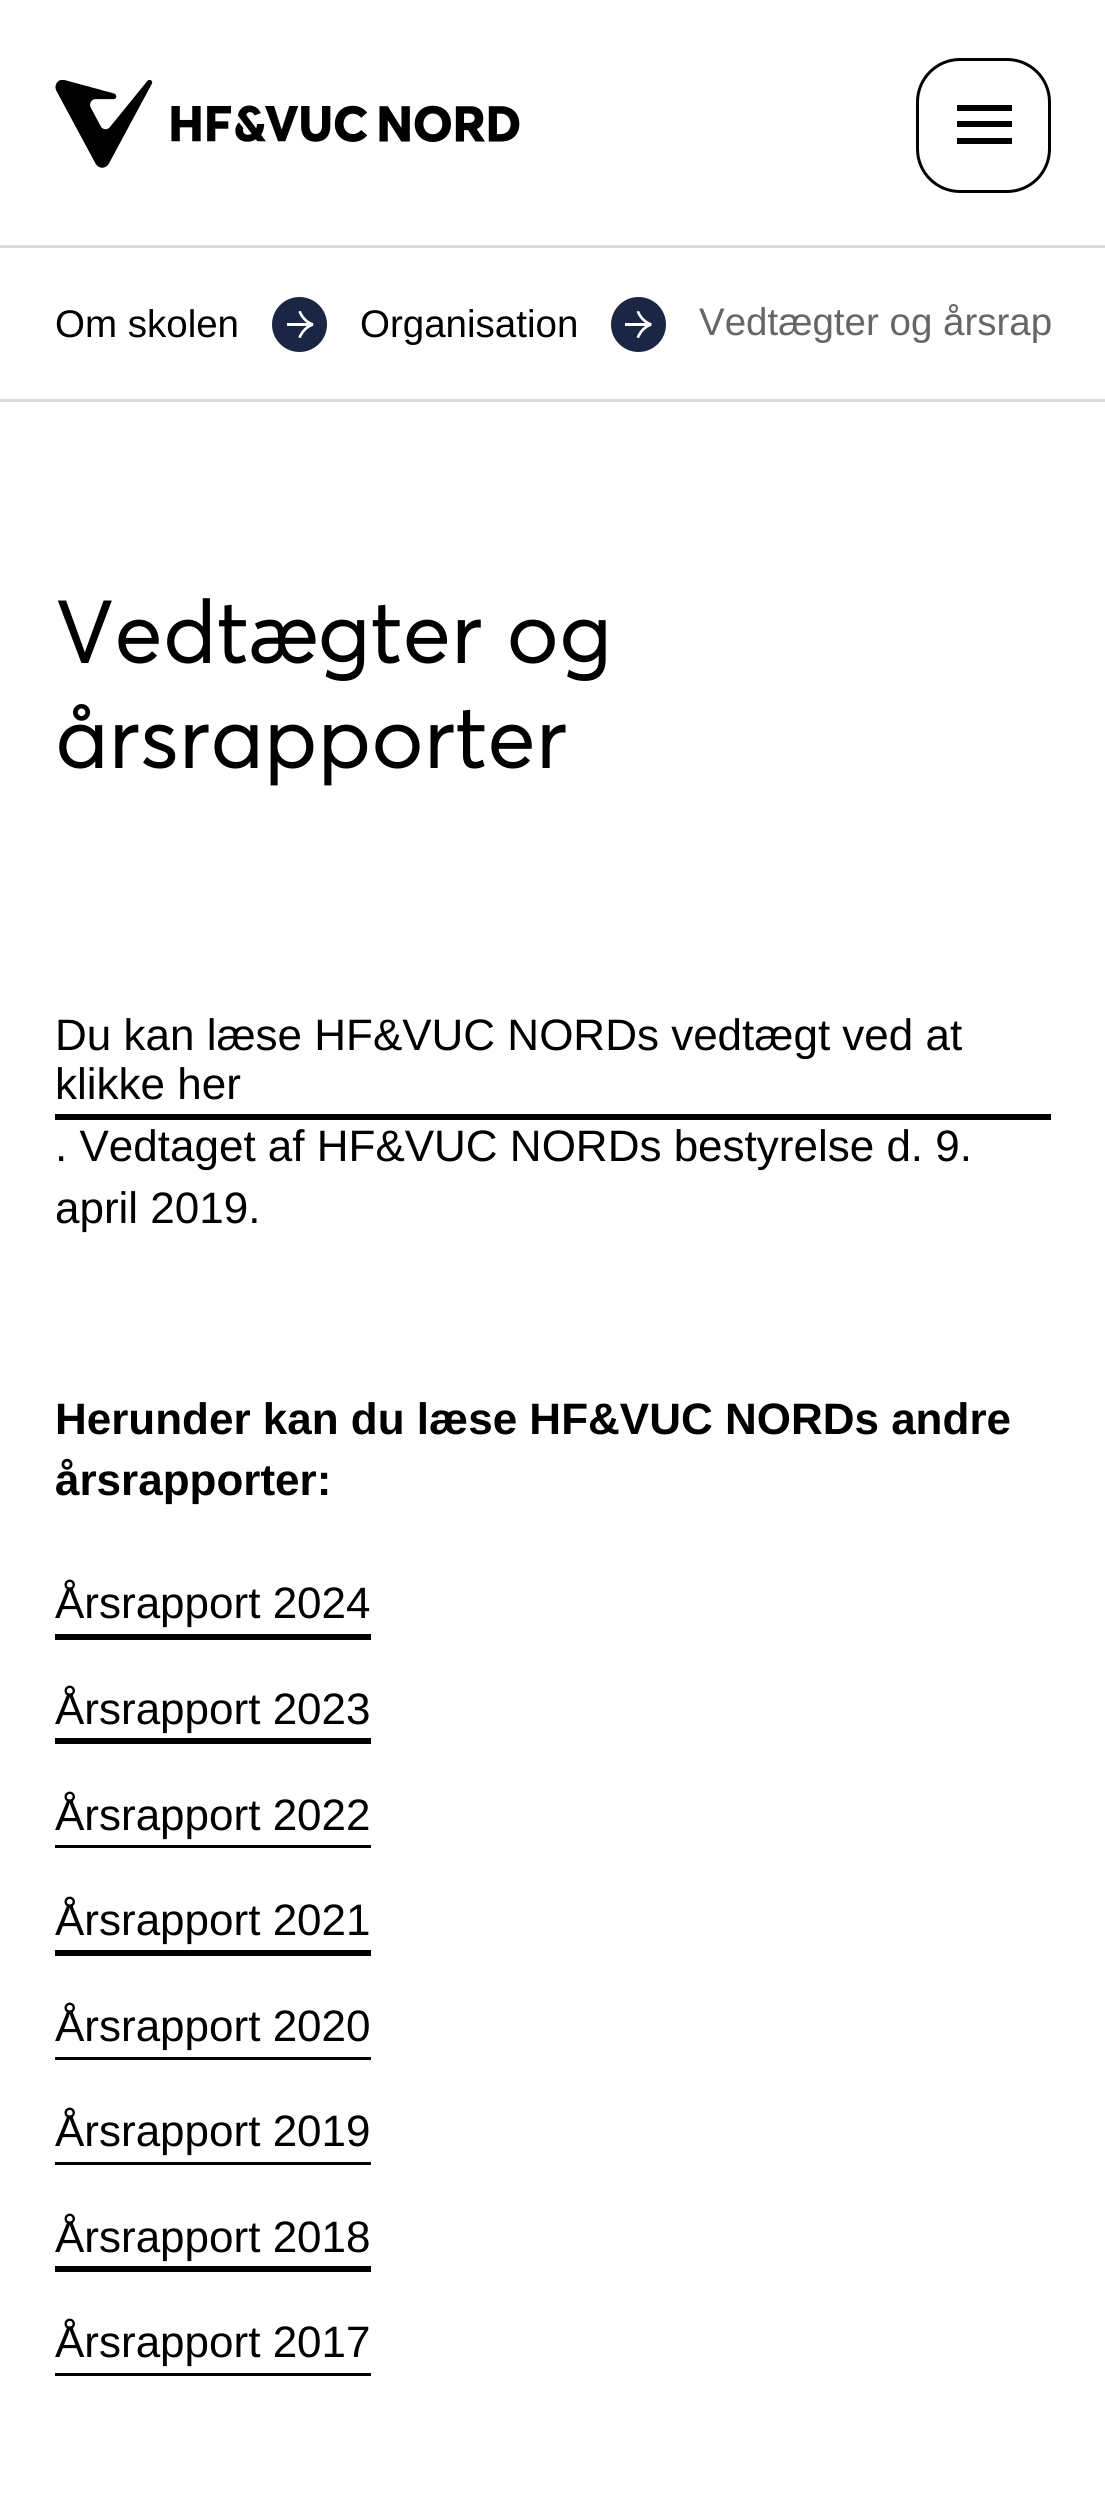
import math
import cairocffi as cairo

surface = cairo.ImageSurface(cairo.FORMAT_RGB24, 1105, 2512)
cr = cairo.Context(surface)
options = cairo.FontOptions()
options.set_hint_metrics(cairo.HINT_METRICS_OFF)
options.set_hint_style(cairo.HINT_STYLE_NONE)
cr.set_font_options(options)
cr.set_miter_limit(4)


def use_color(code):
    cr.set_source_rgb(*(v / 255 for v in bytes.fromhex(code[-6:])))


def round_rect(x, y, w, h, r):
    cr.new_sub_path()
    for i, (u, v) in enumerate([(x + w - r, y + h - r), (x + r, y + h - r), (x + r, y + r), (x + w - r, y + r)]):
        cr.arc(u, v, r, i * math.pi / 2, (i + 1) * math.pi / 2)
    cr.close_path()


def picture(path, x, y, w, h):
    cr.save()
    cr.set_source_surface(cairo.ImageSurface.create_from_png(path), x, y)
    cr.rectangle(x, y, w, h)
    cr.fill()
    cr.restore()


use_color("#ffffff")
cr.paint()
use_color("#dadada")
cr.rectangle(0, 245, 1105, 3)
cr.fill()
picture("img1.png", 55, 80, 465, 88)
round_rect(917.5, 59.5, 132, 132, 42.5)
use_color("#000000")
cr.set_line_width(3)
cr.stroke()
cr.rectangle(957, 121, 55, 6)
cr.fill()
cr.rectangle(957, 105, 55, 6)
cr.fill()
cr.rectangle(957, 138, 55, 6)
cr.fill()
use_color("#dadada")
cr.rectangle(0, 399, 1105, 3)
cr.fill()
cr.select_font_face("Liberation Sans")
cr.set_font_size(38.5)
use_color("#000000")
cr.move_to(55, 337)
cr.show_text("Om skolen")
use_color("#1a2643")
cr.new_path()
cr.arc(299.5, 324.5, 27.5, 0, 2 * math.pi)
cr.fill()
picture("img2.png", 287, 311, 27, 27)
use_color("#000000")
cr.move_to(360, 337)
cr.show_text("Organisation")
use_color("#1a2643")
cr.new_path()
cr.arc(638.5, 324.5, 27.5, 0, 2 * math.pi)
cr.fill()
picture("img3.png", 625, 311, 27, 27)
use_color("#666666")
cr.move_to(699, 335)
cr.show_text("Vedtægter og årsrap")
cr.select_font_face("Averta")
cr.set_font_size(88)
use_color("#000000")
cr.move_to(55, 663)
cr.show_text("Vedtægter og")
cr.move_to(55, 768)
cr.show_text("årsrapporter")
cr.select_font_face("Liberation Sans")
cr.set_font_size(44)
cr.move_to(55, 1050)
cr.show_text("Du kan læse HF&VUC NORDs vedtægt ved at")
cr.move_to(55, 1099)
cr.show_text("klikke her")
cr.rectangle(55, 1114, 996, 6)
cr.fill()
cr.move_to(55, 1161)
cr.show_text(". Vedtaget af HF&VUC NORDs bestyrelse d. 9.")
cr.move_to(55, 1223)
cr.show_text("april 2019.")
cr.select_font_face("Liberation Sans", cairo.FONT_SLANT_NORMAL, cairo.FONT_WEIGHT_BOLD)
cr.move_to(55, 1434)
cr.show_text("Herunder kan du læse HF&VUC NORDs andre")
cr.move_to(55, 1495)
cr.show_text("årsrapporter:")
cr.select_font_face("Liberation Sans")
cr.move_to(55, 1618)
cr.show_text("Årsrapport 2024")
cr.rectangle(55, 1634, 316, 6)
cr.fill()
cr.move_to(55, 1724)
cr.show_text("Årsrapport 2023")
cr.rectangle(55, 1738, 316, 6)
cr.fill()
cr.move_to(55, 1830)
cr.show_text("Årsrapport 2022")
cr.rectangle(55, 1845, 316, 3)
cr.fill()
cr.move_to(55, 1935)
cr.show_text("Årsrapport 2021")
cr.rectangle(55, 1950, 316, 6)
cr.fill()
cr.move_to(55, 2041)
cr.show_text("Årsrapport 2020")
cr.rectangle(55, 2057, 316, 3)
cr.fill()
cr.move_to(55, 2146)
cr.show_text("Årsrapport 2019")
cr.rectangle(55, 2162, 316, 3)
cr.fill()
cr.move_to(55, 2252)
cr.show_text("Årsrapport 2018")
cr.rectangle(55, 2266, 316, 6)
cr.fill()
cr.move_to(55, 2357)
cr.show_text("Årsrapport 2017")
cr.rectangle(55, 2373, 316, 3)
cr.fill()
surface.write_to_png("result.png")
